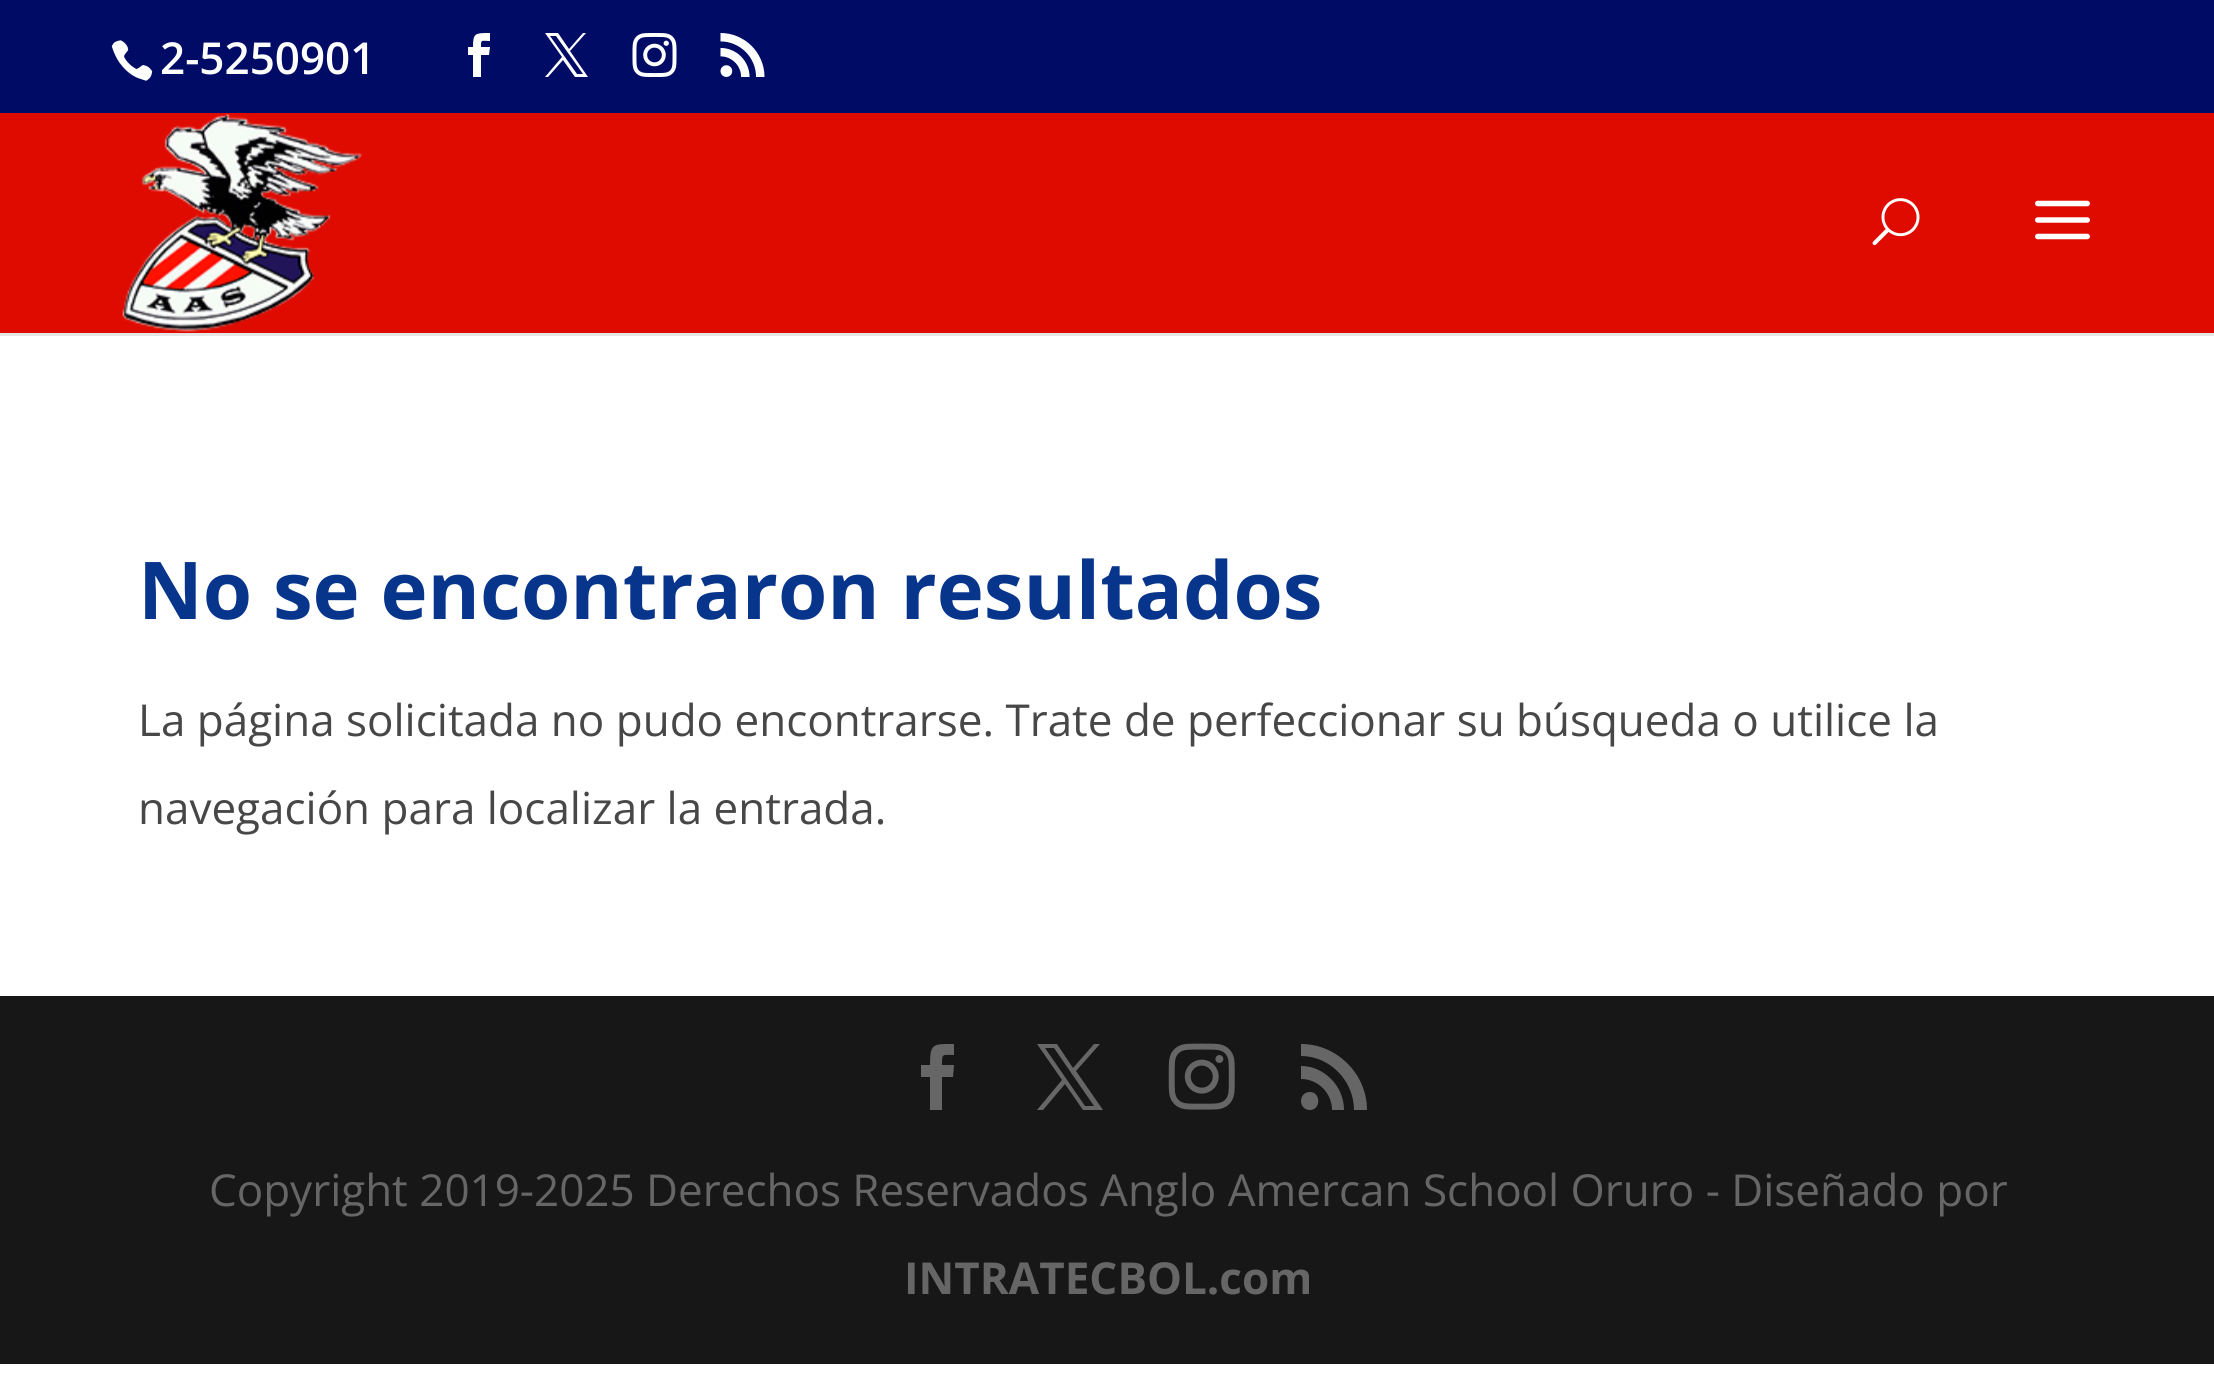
import math
import cairocffi as cairo

surface = cairo.ImageSurface(cairo.FORMAT_RGB24, 2214, 1394)
cr = cairo.Context(surface)
options = cairo.FontOptions()
options.set_hint_metrics(cairo.HINT_METRICS_OFF)
options.set_hint_style(cairo.HINT_STYLE_NONE)
cr.set_font_options(options)
cr.set_miter_limit(4)


def use_color(code):
    cr.set_source_rgb(*(v / 255 for v in bytes.fromhex(code[-6:])))


def picture(path, x, y, w, h):
    cr.save()
    cr.set_source_surface(cairo.ImageSurface.create_from_png(path), x, y)
    cr.rectangle(x, y, w, h)
    cr.fill()
    cr.restore()


use_color("#ffffff")
cr.paint()
use_color("#000b66")
cr.rectangle(0, 0, 2214, 113)
cr.fill()
picture("img1.png", 111, 40, 42, 41)
cr.select_font_face("Open Sans SemiBold")
cr.set_font_size(44)
use_color("#ffffff")
cr.move_to(160, 74)
cr.show_text("2-5250901")
cr.new_path()
cr.move_to(473, 77)
cr.line_to(481, 77)
cr.line_to(481, 55)
cr.line_to(489, 55)
cr.line_to(490, 47)
cr.line_to(481, 47)
cr.curve_to(481, 39, 481, 41, 490, 41)
cr.line_to(490, 33)
cr.curve_to(475, 33, 473, 33, 473, 47)
cr.line_to(468, 47)
cr.line_to(468, 55)
cr.line_to(473, 55)
cr.close_path()
cr.fill()
cr.new_path()
cr.move_to(545, 33)
cr.line_to(562, 57)
cr.line_to(545, 77)
cr.line_to(548, 77)
cr.line_to(563, 60)
cr.line_to(575, 77)
cr.line_to(588, 77)
cr.line_to(570, 51)
cr.line_to(586, 33)
cr.line_to(583, 33)
cr.line_to(569, 49)
cr.line_to(558, 33)
cr.close_path()
cr.move_to(550, 36)
cr.line_to(556, 36)
cr.line_to(583, 74)
cr.line_to(577, 74)
cr.close_path()
cr.fill()
picture("img2.png", 632, 33, 45, 44)
picture("img3.png", 720, 33, 45, 44)
use_color("#e6e6e6")
cr.new_path()
cr.move_to(0, 333)
cr.line_to(0, 336)
cr.line_to(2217, 336)
cr.line_to(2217, 116)
cr.line_to(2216, 116)
cr.line_to(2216, 333)
cr.close_path()
cr.fill()
use_color("#e00b00")
cr.rectangle(0, 113, 2214, 220)
cr.fill()
picture("img4.png", 122, 113, 241, 219)
picture("img5.png", 1872, 198, 48, 48)
picture("img6.png", 2035, 200, 55, 40)
cr.select_font_face("Open Sans", cairo.FONT_SLANT_NORMAL, cairo.FONT_WEIGHT_BOLD)
cr.set_font_size(79.75)
use_color("#07358c")
cr.move_to(138, 619)
cr.show_text("No se encontraron resultados")
cr.select_font_face("Open Sans")
cr.set_font_size(44)
use_color("#474747")
cr.move_to(138, 736)
cr.show_text("La página solicitada no pudo encontrarse. Trate de perfeccionar su búsqueda o utilice la")
cr.move_to(138, 824)
cr.show_text("navegación para localizar la entrada.")
use_color("#171717")
cr.rectangle(0, 996, 2214, 368)
cr.fill()
use_color("#666666")
cr.new_path()
cr.move_to(930, 1110)
cr.line_to(942, 1110)
cr.line_to(942, 1077)
cr.line_to(953, 1077)
cr.line_to(954, 1065)
cr.line_to(942, 1065)
cr.curve_to(942, 1053, 942, 1055, 954, 1055)
cr.line_to(954, 1044)
cr.curve_to(933, 1044, 930, 1043, 930, 1065)
cr.line_to(921, 1065)
cr.line_to(921, 1077)
cr.line_to(930, 1077)
cr.close_path()
cr.fill()
cr.new_path()
cr.move_to(1037, 1044)
cr.line_to(1062, 1080)
cr.line_to(1037, 1110)
cr.line_to(1043, 1110)
cr.line_to(1065, 1084)
cr.line_to(1083, 1110)
cr.line_to(1103, 1110)
cr.line_to(1076, 1071)
cr.line_to(1100, 1044)
cr.line_to(1094, 1044)
cr.line_to(1073, 1068)
cr.line_to(1057, 1044)
cr.close_path()
cr.move_to(1045, 1048)
cr.line_to(1054, 1048)
cr.line_to(1094, 1106)
cr.line_to(1085, 1106)
cr.close_path()
cr.fill()
picture("img7.png", 1168, 1043, 67, 67)
cr.new_path()
cr.move_to(1301, 1044)
cr.line_to(1301, 1056)
cr.curve_to(1330, 1056, 1354, 1081, 1354, 1110)
cr.line_to(1367, 1110)
cr.curve_to(1367, 1074, 1337, 1044, 1301, 1044)
cr.close_path()
cr.move_to(1332, 1110)
cr.line_to(1344, 1110)
cr.curve_to(1344, 1086, 1324, 1066, 1301, 1066)
cr.line_to(1301, 1079)
cr.curve_to(1318, 1079, 1332, 1093, 1332, 1110)
cr.close_path()
cr.move_to(1310, 1110)
cr.curve_to(1321, 1110, 1321, 1092, 1310, 1092)
cr.curve_to(1298, 1092, 1298, 1110, 1310, 1110)
cr.close_path()
cr.fill()
cr.move_to(209, 1206)
cr.show_text("Copyright 2019-2025 Derechos Reservados Anglo Amercan School Oruro - Diseñado por")
cr.select_font_face("Open Sans", cairo.FONT_SLANT_NORMAL, cairo.FONT_WEIGHT_BOLD)
cr.move_to(904, 1294)
cr.show_text("INTRATECBOL.com")
surface.write_to_png("result.png")
